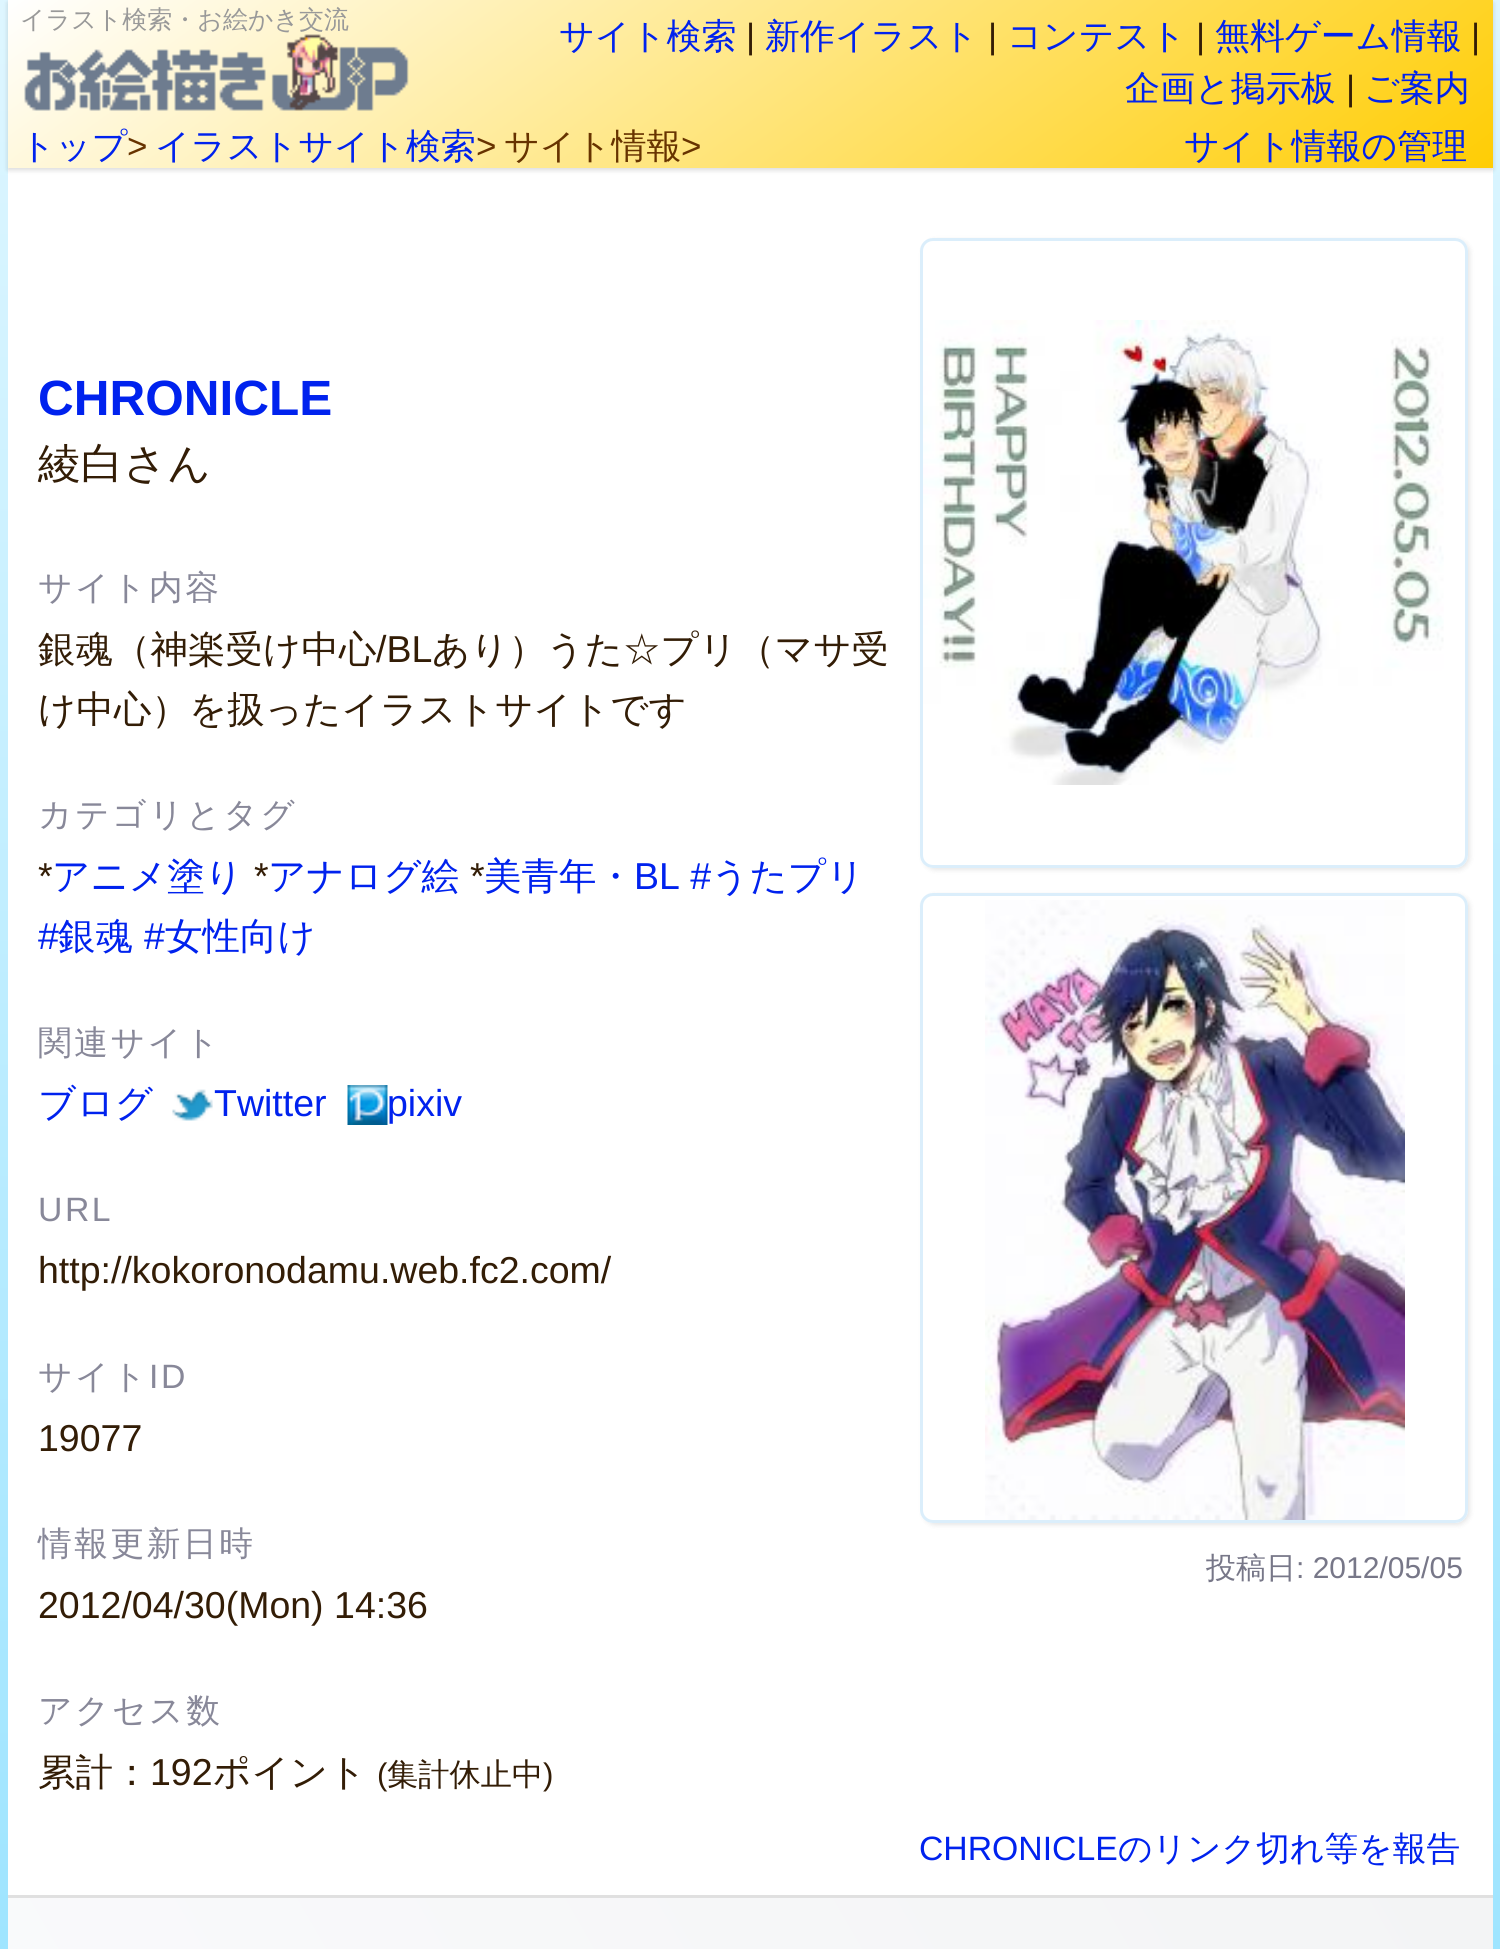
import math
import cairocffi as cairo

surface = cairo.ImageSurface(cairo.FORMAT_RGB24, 1500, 1949)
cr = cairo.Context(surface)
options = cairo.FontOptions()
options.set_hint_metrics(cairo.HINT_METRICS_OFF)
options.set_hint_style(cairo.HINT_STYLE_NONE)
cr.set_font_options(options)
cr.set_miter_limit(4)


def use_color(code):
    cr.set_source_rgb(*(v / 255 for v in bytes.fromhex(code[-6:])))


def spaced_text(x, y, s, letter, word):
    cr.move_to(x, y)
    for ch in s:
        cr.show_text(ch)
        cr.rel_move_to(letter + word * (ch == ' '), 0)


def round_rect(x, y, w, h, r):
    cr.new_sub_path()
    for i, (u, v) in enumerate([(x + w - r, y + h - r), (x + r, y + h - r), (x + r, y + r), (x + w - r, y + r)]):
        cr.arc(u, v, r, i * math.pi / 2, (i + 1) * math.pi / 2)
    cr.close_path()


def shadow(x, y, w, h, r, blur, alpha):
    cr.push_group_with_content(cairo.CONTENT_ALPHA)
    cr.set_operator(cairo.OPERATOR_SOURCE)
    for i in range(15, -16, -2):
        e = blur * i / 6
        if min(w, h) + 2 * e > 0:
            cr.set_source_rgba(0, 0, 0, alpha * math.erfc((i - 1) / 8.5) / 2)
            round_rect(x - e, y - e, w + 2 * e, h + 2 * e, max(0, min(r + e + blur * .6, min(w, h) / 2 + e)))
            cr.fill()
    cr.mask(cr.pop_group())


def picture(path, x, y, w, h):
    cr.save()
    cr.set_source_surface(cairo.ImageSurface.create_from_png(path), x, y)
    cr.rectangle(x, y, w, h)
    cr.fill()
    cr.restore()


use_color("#ffffff")
cr.paint()
gradient = cairo.LinearGradient(750, 0, 750, 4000)
gradient.add_color_stop_rgba(0, 0.871, 0.965, 1, 1)
gradient.add_color_stop_rgba(1, 0.361, 0.824, 1, 1)
cr.set_source(gradient)
cr.rectangle(0, 0, 1500, 1949)
cr.fill()
use_color("#ffffff")
cr.rectangle(8, 168, 1485, 1727)
cr.fill()
use_color("#000000")
shadow(8, 3, 1485, 167, 0, 2.5, 0.15)
gradient = cairo.LinearGradient(454, -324, 1046, 492)
gradient.add_color_stop_rgba(0, 1, 1, 1, 1)
gradient.add_color_stop_rgba(1, 1, 0.804, 0.016, 1)
cr.set_source(gradient)
cr.rectangle(8, 0, 1485, 168)
cr.fill()
cr.select_font_face("WenQuanYi Zen Hei Medium")
cr.set_font_size(25)
use_color("#999999")
cr.move_to(20, 28)
cr.show_text("イラスト検索・お絵かき交流")
picture("img1.png", 24, 34, 385, 77)
cr.set_font_size(35)
use_color("#0022ee")
cr.move_to(559, 48)
cr.show_text("サイト検索")
cr.select_font_face("Liberation Sans")
use_color("#331d06")
cr.move_to(746, 48)
cr.show_text("|")
cr.select_font_face("WenQuanYi Zen Hei Medium")
use_color("#0022ee")
cr.move_to(765, 48)
cr.show_text("新作イラスト")
cr.select_font_face("Liberation Sans")
use_color("#331d06")
cr.move_to(988, 48)
cr.show_text("|")
cr.select_font_face("WenQuanYi Zen Hei Medium")
use_color("#0022ee")
cr.move_to(1007, 48)
cr.show_text("コンテスト")
cr.select_font_face("Liberation Sans")
use_color("#331d06")
cr.move_to(1196, 48)
cr.show_text("|")
cr.select_font_face("WenQuanYi Zen Hei Medium")
use_color("#0022ee")
cr.move_to(1215, 48)
cr.show_text("無料ゲーム情報")
cr.select_font_face("Liberation Sans")
use_color("#331d06")
cr.move_to(1471, 48)
cr.show_text("|")
cr.select_font_face("WenQuanYi Zen Hei Medium")
use_color("#0022ee")
cr.move_to(1125, 100)
cr.show_text("企画と掲示板")
cr.select_font_face("Liberation Sans")
use_color("#331d06")
cr.move_to(1346, 100)
cr.show_text("|")
cr.select_font_face("WenQuanYi Zen Hei Medium")
use_color("#0022ee")
cr.move_to(1364, 100)
cr.show_text("ご案内")
cr.move_to(20, 158)
cr.show_text("トップ")
cr.select_font_face("Liberation Sans")
use_color("#673300")
cr.move_to(127, 158)
cr.show_text(">")
cr.select_font_face("WenQuanYi Zen Hei Medium")
use_color("#0022ee")
cr.move_to(155, 158)
cr.show_text("イラストサイト検索")
cr.select_font_face("Liberation Sans")
use_color("#673300")
cr.move_to(476, 158)
cr.show_text(">")
cr.select_font_face("WenQuanYi Zen Hei Medium")
cr.move_to(504, 158)
cr.show_text("サイト情報")
cr.select_font_face("Liberation Sans")
cr.move_to(681, 158)
cr.show_text(">")
cr.select_font_face("WenQuanYi Zen Hei Medium")
use_color("#0022ee")
cr.move_to(1184, 158)
cr.show_text("サイト情報の管理")
cr.select_font_face("Liberation Sans", cairo.FONT_SLANT_NORMAL, cairo.FONT_WEIGHT_BOLD)
cr.set_font_size(49.5)
cr.move_to(38, 415)
cr.show_text("CHRONICLE")
cr.select_font_face("WenQuanYi Zen Hei Medium")
cr.set_font_size(42.75)
use_color("#331d06")
cr.move_to(38, 478)
cr.show_text("綾白さん")
cr.set_font_size(33.75)
use_color("#888899")
spaced_text(38, 599, "サイト内容", 2.5, 0)
cr.set_font_size(37.5)
use_color("#331d06")
cr.move_to(38, 662)
cr.show_text("銀魂（神楽受け中心")
cr.select_font_face("Liberation Sans")
cr.move_to(376, 662)
cr.show_text("/BL")
cr.select_font_face("WenQuanYi Zen Hei Medium")
cr.move_to(432, 662)
cr.show_text("あり）うた☆プリ（マサ受")
cr.move_to(38, 722)
cr.show_text("け中心）を扱ったイラストサイトです")
cr.set_font_size(33.75)
use_color("#888899")
spaced_text(38, 826, "カテゴリとタグ", 2.5, 0)
cr.select_font_face("Liberation Sans")
cr.set_font_size(37.5)
use_color("#331d06")
cr.move_to(38, 889)
cr.show_text("*")
cr.select_font_face("WenQuanYi Zen Hei Medium")
use_color("#0022ee")
cr.move_to(52, 889)
cr.show_text("アニメ塗り")
cr.select_font_face("Liberation Sans")
use_color("#331d06")
cr.move_to(254, 889)
cr.show_text("*")
cr.select_font_face("WenQuanYi Zen Hei Medium")
use_color("#0022ee")
cr.move_to(268, 889)
cr.show_text("アナログ絵")
cr.select_font_face("Liberation Sans")
use_color("#331d06")
cr.move_to(470, 889)
cr.show_text("*")
cr.select_font_face("WenQuanYi Zen Hei Medium")
use_color("#0022ee")
cr.move_to(484, 889)
cr.show_text("美青年・")
cr.select_font_face("Liberation Sans")
cr.move_to(634, 889)
cr.show_text("BL #")
cr.select_font_face("WenQuanYi Zen Hei Medium")
cr.move_to(711, 889)
cr.show_text("うたプリ")
cr.select_font_face("Liberation Sans")
cr.move_to(38, 949)
cr.show_text("#")
cr.select_font_face("WenQuanYi Zen Hei Medium")
cr.move_to(58, 949)
cr.show_text("銀魂")
cr.select_font_face("Liberation Sans")
cr.move_to(144, 949)
cr.show_text("#")
cr.select_font_face("WenQuanYi Zen Hei Medium")
cr.move_to(165, 949)
cr.show_text("女性向け")
cr.set_font_size(33.75)
use_color("#888899")
spaced_text(38, 1054, "関連サイト", 2.5, 0)
cr.set_font_size(37.5)
use_color("#0022ee")
cr.move_to(38, 1116)
cr.show_text("ブログ")
picture("img2.png", 172, 1089, 41, 32)
cr.select_font_face("Liberation Sans")
cr.move_to(214, 1116)
cr.show_text("Twitter")
picture("img3.png", 347, 1085, 41, 40)
cr.move_to(387, 1116)
cr.show_text("pixiv")
cr.set_font_size(33.75)
use_color("#888899")
spaced_text(38, 1221, "URL", 2.5, 0)
cr.set_font_size(37.5)
use_color("#331d06")
cr.move_to(38, 1283)
cr.show_text("http://kokoronodamu.web.fc2.com/")
cr.select_font_face("WenQuanYi Zen Hei Medium")
cr.set_font_size(33.75)
use_color("#888899")
spaced_text(38, 1388, "サイト", 2.5, 0)
cr.select_font_face("Liberation Sans")
spaced_text(149, 1388, "ID", 2.5, 0)
cr.set_font_size(37.5)
use_color("#331d06")
cr.move_to(38, 1451)
cr.show_text("19077")
cr.select_font_face("WenQuanYi Zen Hei Medium")
cr.set_font_size(33.75)
use_color("#888899")
spaced_text(38, 1555, "情報更新日時", 2.5, 0)
use_color("#000000")
shadow(923, 240, 547, 630, 13, 2.5, 0.1)
use_color("#ffffff")
round_rect(920, 238, 548, 630, 13)
cr.fill()
picture("img4.png", 923, 320, 521, 465)
round_rect(921.5, 239.5, 545, 627, 11.5)
use_color("#dbeefb")
cr.set_line_width(3)
cr.stroke()
use_color("#000000")
shadow(923, 895, 547, 630, 13, 2.5, 0.1)
use_color("#ffffff")
round_rect(920, 893, 548, 630, 13)
cr.fill()
picture("img5.png", 985, 900, 420, 620)
round_rect(921.5, 894.5, 545, 627, 11.5)
use_color("#dbeefb")
cr.stroke()
cr.set_font_size(30)
use_color("#777788")
cr.move_to(1206, 1578)
cr.show_text("投稿日")
cr.select_font_face("Liberation Sans")
cr.move_to(1296, 1578)
cr.show_text(": 2012/05/05")
cr.set_font_size(37.5)
use_color("#331d06")
cr.move_to(38, 1618)
cr.show_text("2012/04/30(Mon) 14:36")
cr.select_font_face("WenQuanYi Zen Hei Medium")
cr.set_font_size(33.75)
use_color("#888899")
spaced_text(38, 1722, "アクセス数", 2.5, 0)
cr.set_font_size(37.5)
use_color("#331d06")
cr.move_to(38, 1785)
cr.show_text("累計：")
cr.select_font_face("Liberation Sans")
cr.move_to(150, 1785)
cr.show_text("192")
cr.select_font_face("WenQuanYi Zen Hei Medium")
cr.move_to(213, 1785)
cr.show_text("ポイント")
cr.select_font_face("Liberation Sans")
cr.set_font_size(31.25)
cr.move_to(377, 1785)
cr.show_text("(")
cr.select_font_face("WenQuanYi Zen Hei Medium")
cr.move_to(387, 1785)
cr.show_text("集計休止中")
cr.select_font_face("Liberation Sans")
cr.move_to(543, 1785)
cr.show_text(")")
cr.set_font_size(33.75)
use_color("#0022ee")
cr.move_to(919, 1860)
cr.show_text("CHRONICLE")
cr.select_font_face("WenQuanYi Zen Hei Medium")
cr.move_to(1118, 1860)
cr.show_text("のリンク切れ等を報告")
gradient = cairo.LinearGradient(-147, 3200, 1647, 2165)
gradient.add_color_stop_rgba(0, 0.992, 0.992, 1, 1)
gradient.add_color_stop_rgba(1, 0.953, 0.957, 0.961, 1)
cr.set_source(gradient)
cr.rectangle(8, 1898, 1485, 51)
cr.fill()
use_color("#e0e0e0")
cr.rectangle(8, 1895, 1485, 3)
cr.fill()
surface.write_to_png("result.png")
